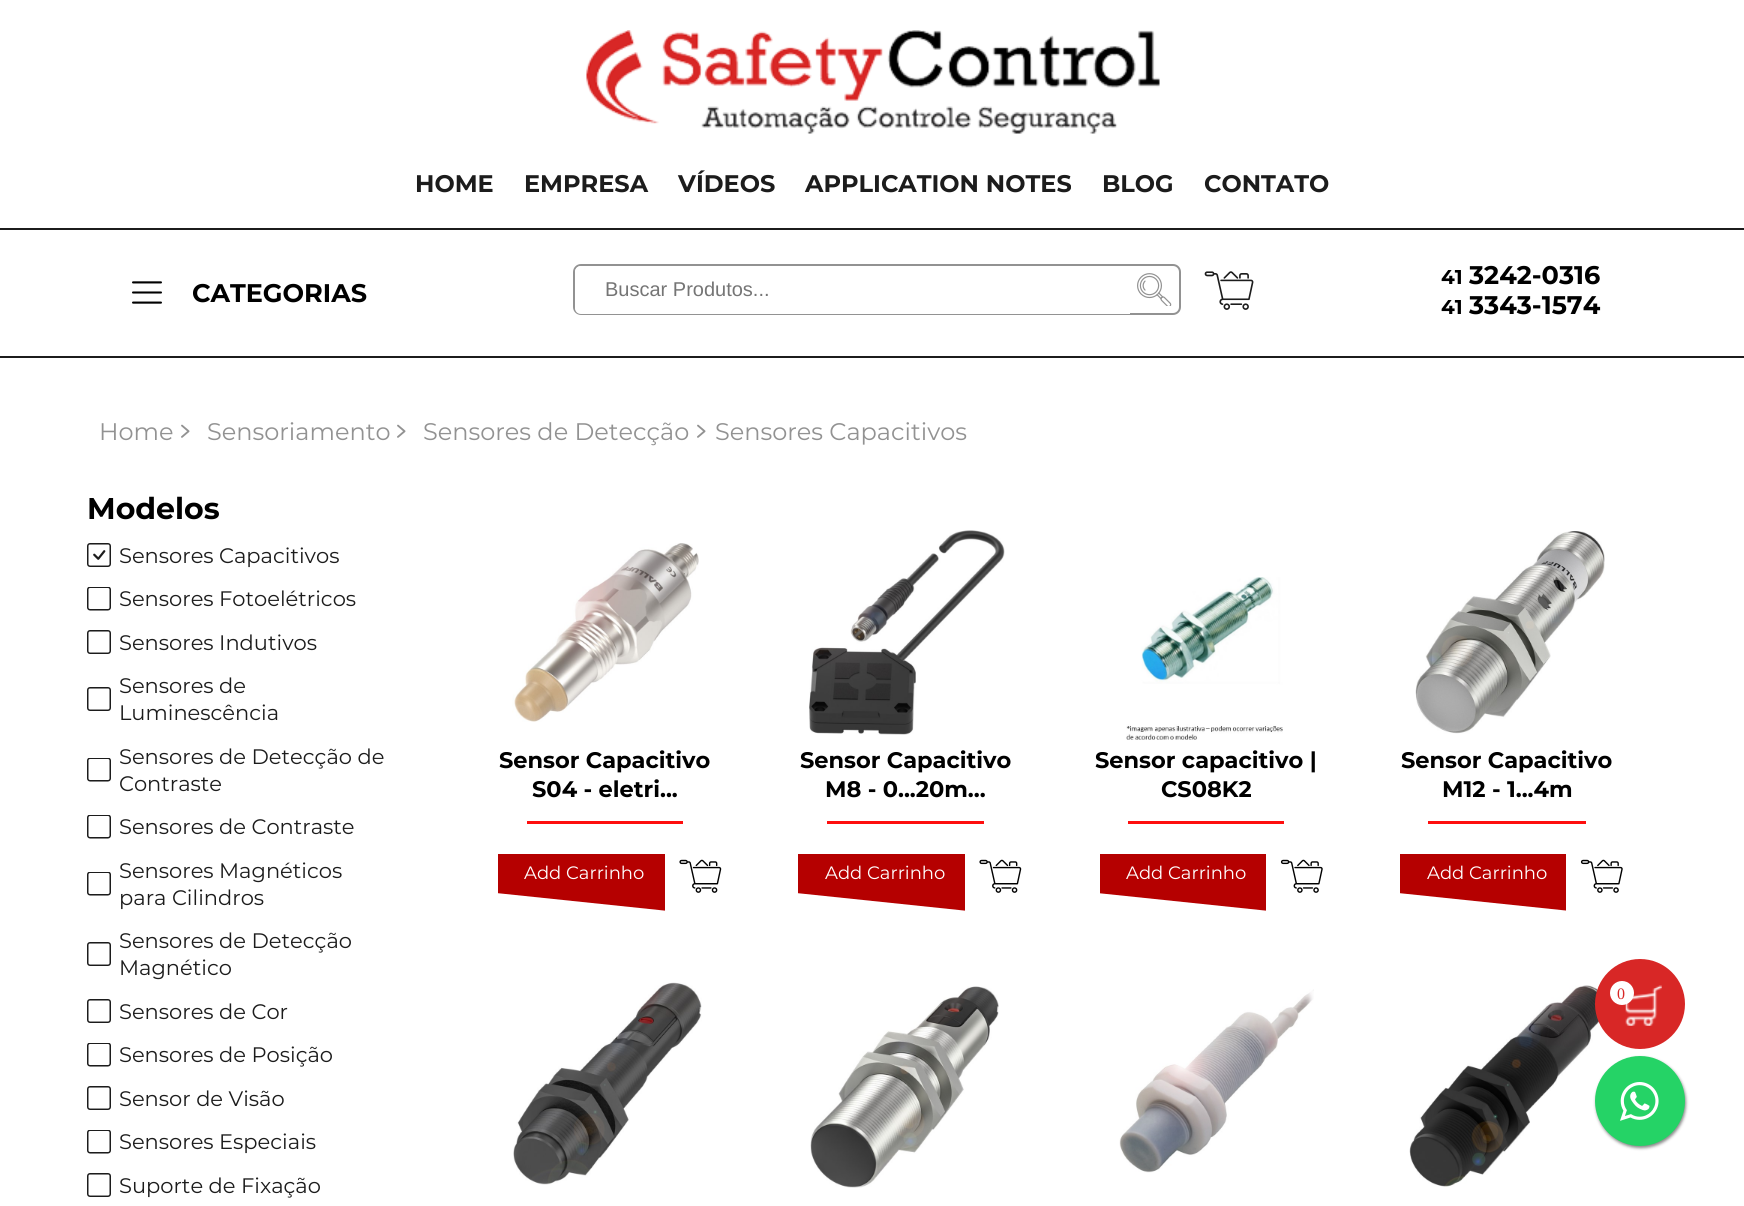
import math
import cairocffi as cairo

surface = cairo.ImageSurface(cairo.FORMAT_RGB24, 1744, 1206)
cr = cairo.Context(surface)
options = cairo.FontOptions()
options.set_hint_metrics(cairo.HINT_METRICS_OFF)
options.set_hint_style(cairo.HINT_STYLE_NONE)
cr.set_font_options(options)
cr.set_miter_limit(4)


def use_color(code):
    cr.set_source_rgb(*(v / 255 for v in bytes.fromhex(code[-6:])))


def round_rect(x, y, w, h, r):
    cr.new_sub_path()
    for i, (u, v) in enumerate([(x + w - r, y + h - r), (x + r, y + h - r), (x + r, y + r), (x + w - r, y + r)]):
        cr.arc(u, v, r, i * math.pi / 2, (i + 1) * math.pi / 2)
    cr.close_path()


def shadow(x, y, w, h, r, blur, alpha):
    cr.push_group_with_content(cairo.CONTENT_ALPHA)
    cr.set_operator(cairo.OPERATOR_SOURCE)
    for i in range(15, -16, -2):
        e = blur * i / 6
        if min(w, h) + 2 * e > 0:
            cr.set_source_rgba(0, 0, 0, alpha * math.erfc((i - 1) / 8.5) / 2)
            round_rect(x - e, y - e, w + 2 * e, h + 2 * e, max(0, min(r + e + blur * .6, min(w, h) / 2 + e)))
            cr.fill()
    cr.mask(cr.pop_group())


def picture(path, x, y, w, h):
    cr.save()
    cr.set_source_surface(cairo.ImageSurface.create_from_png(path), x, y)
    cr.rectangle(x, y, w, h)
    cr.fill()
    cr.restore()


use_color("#ffffff")
cr.paint()
picture("img1.png", 586, 30, 574, 104)
cr.select_font_face("Montserrat", cairo.FONT_SLANT_NORMAL, cairo.FONT_WEIGHT_BOLD)
cr.set_font_size(24)
use_color("#1c1c1c")
cr.move_to(415, 192)
cr.show_text("HOME")
cr.move_to(524, 192)
cr.show_text("EMPRESA")
cr.move_to(678, 192)
cr.show_text("VÍDEOS")
cr.move_to(805, 192)
cr.show_text("APPLICATION NOTES")
cr.move_to(1102, 192)
cr.show_text("BLOG")
cr.move_to(1204, 192)
cr.show_text("CONTATO")
cr.rectangle(0, 228, 1744, 2)
cr.fill()
cr.rectangle(0, 356, 1744, 2)
cr.fill()
picture("img2.png", 132, 281, 30, 23)
cr.set_font_size(25.5)
use_color("#000000")
cr.move_to(192, 302)
cr.show_text("CATEGORIAS")
round_rect(574, 265, 606, 49, 7)
use_color("#929292")
cr.stroke()
use_color("#ffffff")
cr.new_path()
cr.move_to(581, 266)
cr.line_to(1130, 266)
cr.line_to(1130, 314)
cr.line_to(581, 314)
cr.curve_to(577.5, 314, 575, 311.5, 575, 308)
cr.line_to(575, 272)
cr.curve_to(575, 268.5, 577.5, 266, 581, 266)
cr.close_path()
cr.fill()
cr.select_font_face("Liberation Sans")
cr.set_font_size(20)
use_color("#757575")
cr.move_to(605, 296)
cr.show_text("Buscar Produtos...")
picture("img3.png", 1137, 273, 35, 33)
picture("img4.png", 1204, 271, 50, 39)
cr.select_font_face("Montserrat", cairo.FONT_SLANT_NORMAL, cairo.FONT_WEIGHT_BOLD)
use_color("#000000")
cr.move_to(1441, 284)
cr.show_text("41")
cr.set_font_size(25.5)
cr.move_to(1469, 284)
cr.show_text("3242-0316")
cr.set_font_size(20)
cr.move_to(1441, 314)
cr.show_text("41")
cr.set_font_size(25.5)
cr.move_to(1469, 314)
cr.show_text("3343-1574")
cr.select_font_face("Montserrat")
cr.set_font_size(24)
use_color("#929292")
cr.move_to(99, 440)
cr.show_text("Home")
picture("img5.png", 181, 424, 9, 14)
cr.move_to(207, 440)
cr.show_text("Sensoriamento")
picture("img5.png", 397, 424, 9, 14)
cr.move_to(423, 440)
cr.show_text("Sensores de Detecção")
picture("img5.png", 697, 424, 9, 14)
cr.move_to(715, 440)
cr.show_text("Sensores Capacitivos")
cr.select_font_face("Montserrat", cairo.FONT_SLANT_NORMAL, cairo.FONT_WEIGHT_BOLD)
cr.set_font_size(30)
use_color("#000000")
cr.move_to(87, 519)
cr.show_text("Modelos")
picture("img6.png", 87, 543, 24, 24)
cr.select_font_face("Montserrat")
cr.set_font_size(21)
use_color("#1c1c1c")
cr.move_to(119, 563)
cr.show_text("Sensores Capacitivos")
picture("img7.png", 87, 587, 24, 24)
cr.move_to(119, 606)
cr.show_text("Sensores Fotoelétricos")
picture("img8.png", 87, 630, 24, 24)
cr.move_to(119, 650)
cr.show_text("Sensores Indutivos")
picture("img8.png", 87, 687, 24, 24)
cr.move_to(119, 693)
cr.show_text("Sensores de")
cr.move_to(119, 720)
cr.show_text("Luminescência")
picture("img7.png", 87, 758, 24, 24)
cr.move_to(119, 764)
cr.show_text("Sensores de Detecção de")
cr.move_to(119, 791)
cr.show_text("Contraste")
picture("img7.png", 87, 815, 24, 24)
cr.move_to(119, 834)
cr.show_text("Sensores de Contraste")
picture("img7.png", 87, 872, 24, 24)
cr.move_to(119, 878)
cr.show_text("Sensores Magnéticos")
cr.move_to(119, 905)
cr.show_text("para Cilindros")
picture("img8.png", 87, 942, 24, 24)
cr.move_to(119, 948)
cr.show_text("Sensores de Detecção")
cr.move_to(119, 975)
cr.show_text("Magnético")
picture("img8.png", 87, 999, 24, 24)
cr.move_to(119, 1019)
cr.show_text("Sensores de Cor")
picture("img7.png", 87, 1043, 24, 24)
cr.move_to(119, 1062)
cr.show_text("Sensores de Posição")
picture("img8.png", 87, 1086, 24, 24)
cr.move_to(119, 1106)
cr.show_text("Sensor de Visão")
picture("img7.png", 87, 1130, 24, 24)
cr.move_to(119, 1149)
cr.show_text("Sensores Especiais")
picture("img8.png", 87, 1173, 24, 24)
cr.move_to(119, 1193)
cr.show_text("Suporte de Fixação")
picture("img9.png", 512, 543, 187, 179)
cr.select_font_face("Montserrat", cairo.FONT_SLANT_NORMAL, cairo.FONT_WEIGHT_BOLD)
cr.set_font_size(22.5)
use_color("#000000")
cr.move_to(499, 768)
cr.show_text("Sensor Capacitivo")
cr.move_to(532, 797)
cr.show_text("S04 - eletri...")
use_color("#fe0f0f")
cr.rectangle(527, 821, 156, 3)
cr.fill()
use_color("#b50000")
cr.rectangle(498, 854, 167, 17)
cr.fill()
cr.save()
cr.rectangle(498, 854, 167, 57)
cr.clip()
cr.new_path()
cr.move_to(500, 849)
cr.line_to(682, 868)
cr.line_to(678, 912)
cr.line_to(496, 893)
cr.close_path()
cr.fill()
cr.restore()
cr.select_font_face("Montserrat")
cr.set_font_size(18)
use_color("#ffffff")
cr.move_to(524, 879)
cr.show_text("Add Carrinho")
picture("img10.png", 679, 859, 43, 34)
picture("img11.png", 809, 530, 196, 205)
cr.select_font_face("Montserrat", cairo.FONT_SLANT_NORMAL, cairo.FONT_WEIGHT_BOLD)
cr.set_font_size(22.5)
use_color("#000000")
cr.move_to(800, 768)
cr.show_text("Sensor Capacitivo")
cr.move_to(825, 797)
cr.show_text("M8 - 0...20m...")
use_color("#fe0f0f")
cr.rectangle(827, 821, 157, 3)
cr.fill()
use_color("#b50000")
cr.rectangle(798, 854, 167, 22)
cr.fill()
cr.save()
cr.rectangle(798, 854, 167, 57)
cr.clip()
cr.new_path()
cr.move_to(801, 849)
cr.line_to(983, 868)
cr.line_to(978, 912)
cr.line_to(796, 893)
cr.close_path()
cr.fill()
cr.restore()
cr.select_font_face("Montserrat")
cr.set_font_size(18)
use_color("#ffffff")
cr.move_to(825, 879)
cr.show_text("Add Carrinho")
picture("img10.png", 979, 859, 43, 34)
picture("img12.png", 1126, 577, 157, 163)
cr.select_font_face("Montserrat", cairo.FONT_SLANT_NORMAL, cairo.FONT_WEIGHT_BOLD)
cr.set_font_size(22.5)
use_color("#000000")
cr.move_to(1095, 768)
cr.show_text("Sensor capacitivo |")
cr.move_to(1161, 797)
cr.show_text("CS08K2")
use_color("#fe0f0f")
cr.rectangle(1128, 821, 156, 3)
cr.fill()
use_color("#b50000")
cr.rectangle(1100, 854, 166, 13)
cr.fill()
cr.save()
cr.rectangle(1100, 854, 166, 57)
cr.clip()
cr.new_path()
cr.move_to(1102, 849)
cr.line_to(1284, 868)
cr.line_to(1279, 912)
cr.line_to(1097, 893)
cr.close_path()
cr.fill()
cr.restore()
cr.select_font_face("Montserrat")
cr.set_font_size(18)
use_color("#ffffff")
cr.move_to(1126, 879)
cr.show_text("Add Carrinho")
picture("img13.png", 1280, 859, 43, 34)
picture("img14.png", 1415, 531, 190, 203)
cr.select_font_face("Montserrat", cairo.FONT_SLANT_NORMAL, cairo.FONT_WEIGHT_BOLD)
cr.set_font_size(22.5)
use_color("#000000")
cr.move_to(1401, 768)
cr.show_text("Sensor Capacitivo")
cr.move_to(1442, 797)
cr.show_text("M12 - 1...4m")
use_color("#fe0f0f")
cr.rectangle(1428, 821, 158, 3)
cr.fill()
use_color("#b50000")
cr.rectangle(1400, 854, 166, 17)
cr.fill()
cr.save()
cr.rectangle(1400, 854, 166, 57)
cr.clip()
cr.new_path()
cr.move_to(1402, 849)
cr.line_to(1585, 868)
cr.line_to(1580, 912)
cr.line_to(1398, 893)
cr.close_path()
cr.fill()
cr.restore()
cr.select_font_face("Montserrat")
cr.set_font_size(18)
use_color("#ffffff")
cr.move_to(1427, 879)
cr.show_text("Add Carrinho")
picture("img13.png", 1580, 859, 43, 34)
picture("img15.png", 513, 982, 189, 203)
picture("img16.png", 810, 986, 189, 202)
picture("img17.png", 1119, 989, 195, 184)
picture("img18.png", 1409, 985, 199, 202)
use_color("#d82726")
cr.arc(1640, 1004, 45, 0, 2 * math.pi)
cr.fill()
picture("img19.png", 1625, 985, 37, 41)
use_color("#ffffff")
cr.arc(1622, 993, 11, 0, 2 * math.pi)
cr.fill_preserve()
cr.stroke()
cr.select_font_face("Liberation Serif")
cr.set_font_size(16)
use_color("#d82726")
cr.move_to(1617, 999)
cr.show_text("0")
use_color("#888888")
shadow(1596, 1058, 90, 90, 45, 1.5, 1)
use_color("#25d366")
cr.arc(1640, 1101, 45, 0, 2 * math.pi)
cr.fill()
picture("img20.png", 1620, 1082, 39, 39)
surface.write_to_png("result.png")
